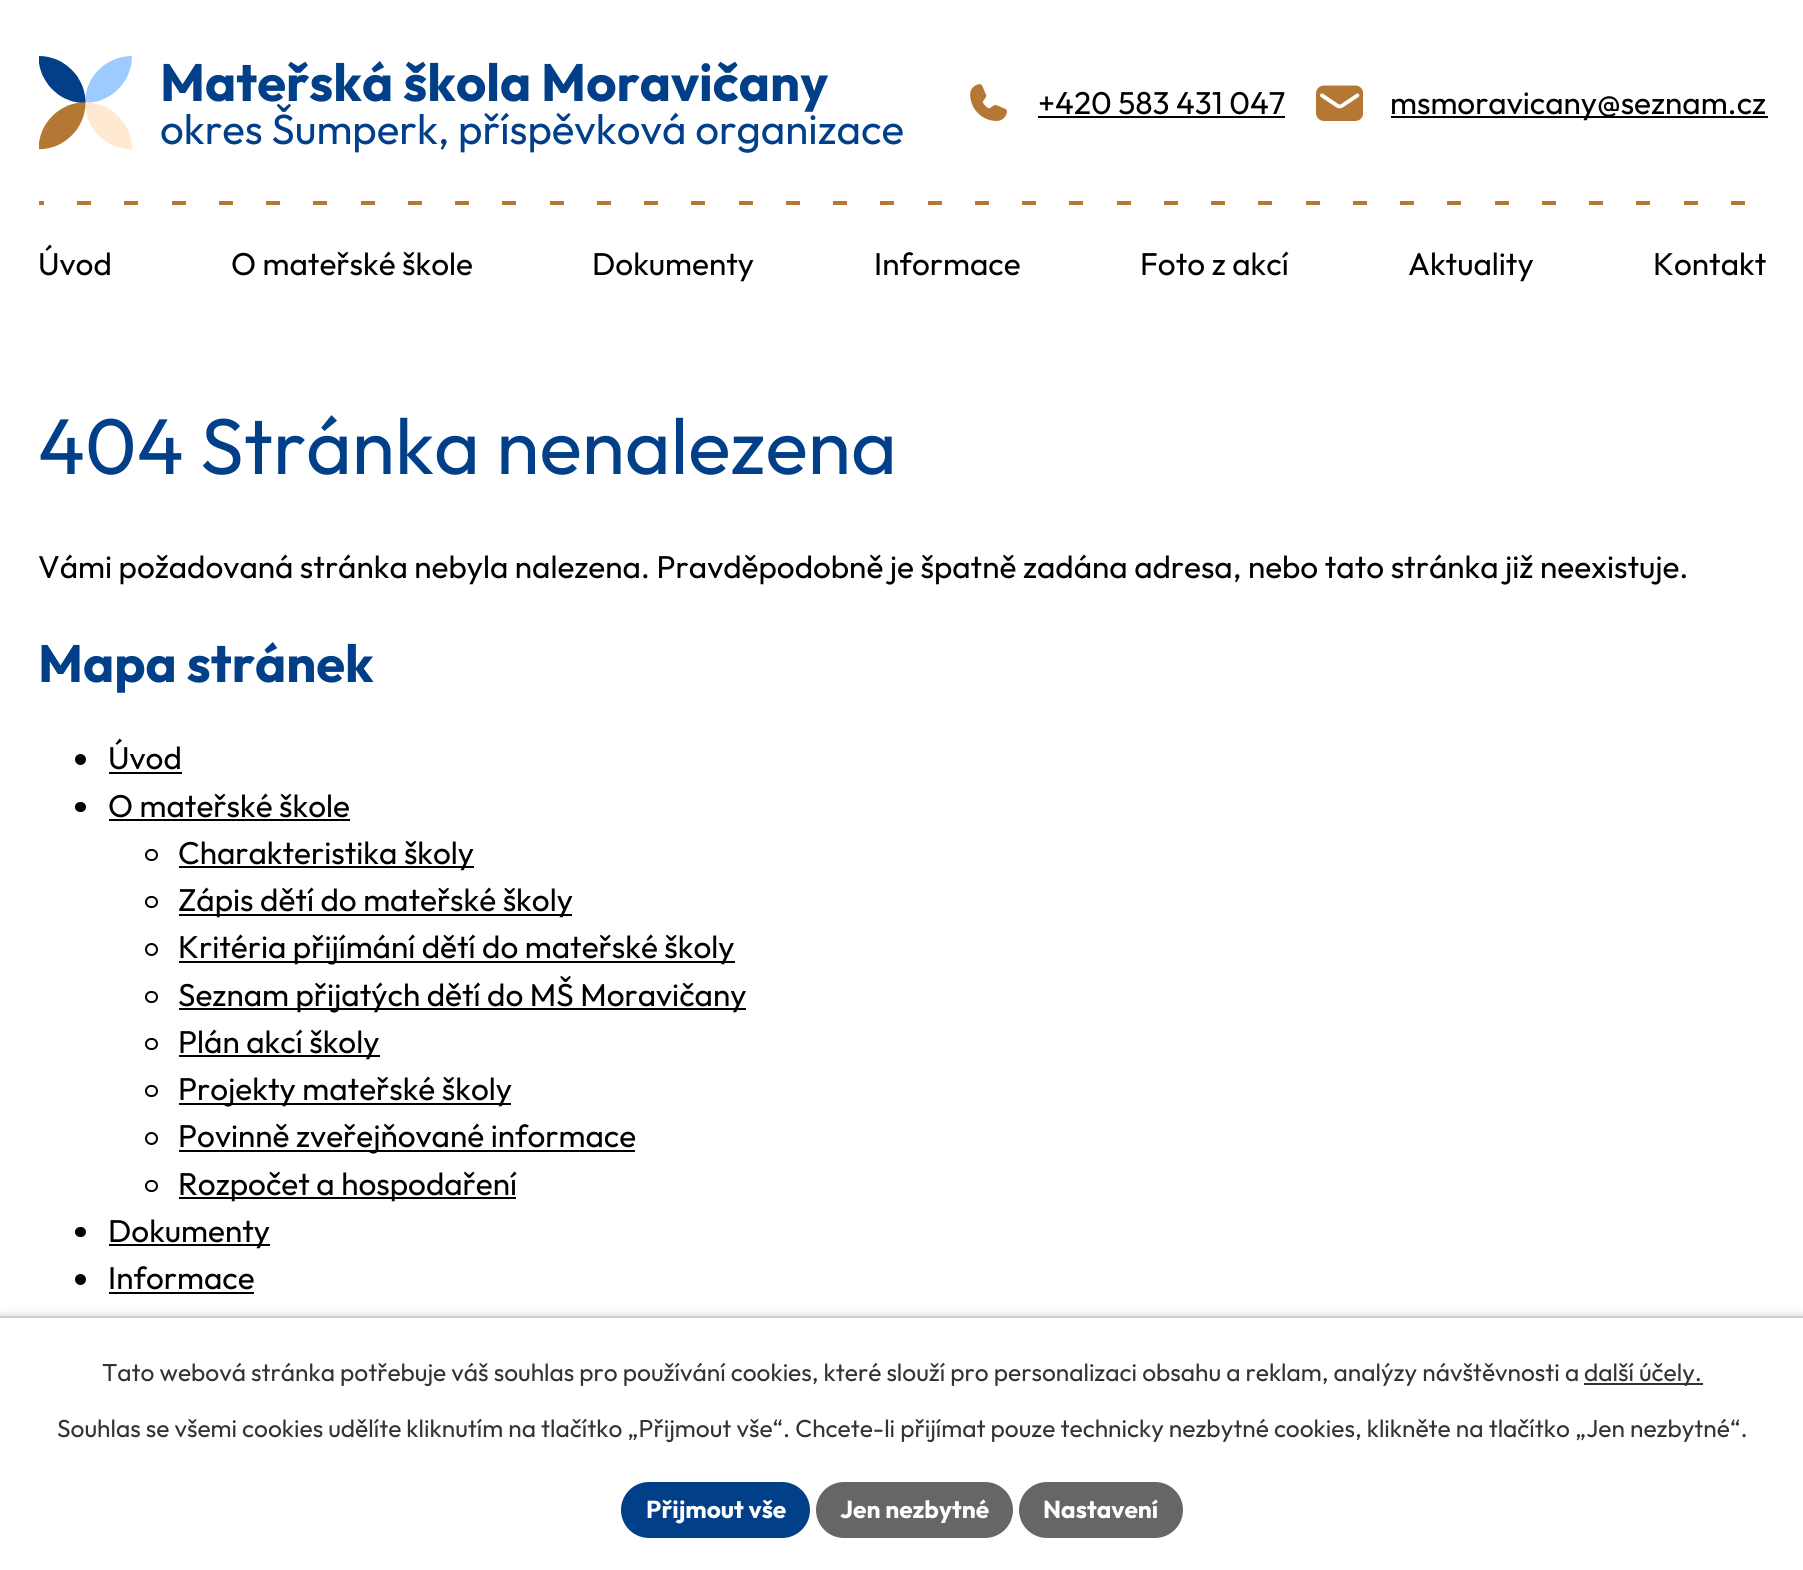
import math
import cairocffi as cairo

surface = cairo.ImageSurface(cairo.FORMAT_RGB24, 1803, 1570)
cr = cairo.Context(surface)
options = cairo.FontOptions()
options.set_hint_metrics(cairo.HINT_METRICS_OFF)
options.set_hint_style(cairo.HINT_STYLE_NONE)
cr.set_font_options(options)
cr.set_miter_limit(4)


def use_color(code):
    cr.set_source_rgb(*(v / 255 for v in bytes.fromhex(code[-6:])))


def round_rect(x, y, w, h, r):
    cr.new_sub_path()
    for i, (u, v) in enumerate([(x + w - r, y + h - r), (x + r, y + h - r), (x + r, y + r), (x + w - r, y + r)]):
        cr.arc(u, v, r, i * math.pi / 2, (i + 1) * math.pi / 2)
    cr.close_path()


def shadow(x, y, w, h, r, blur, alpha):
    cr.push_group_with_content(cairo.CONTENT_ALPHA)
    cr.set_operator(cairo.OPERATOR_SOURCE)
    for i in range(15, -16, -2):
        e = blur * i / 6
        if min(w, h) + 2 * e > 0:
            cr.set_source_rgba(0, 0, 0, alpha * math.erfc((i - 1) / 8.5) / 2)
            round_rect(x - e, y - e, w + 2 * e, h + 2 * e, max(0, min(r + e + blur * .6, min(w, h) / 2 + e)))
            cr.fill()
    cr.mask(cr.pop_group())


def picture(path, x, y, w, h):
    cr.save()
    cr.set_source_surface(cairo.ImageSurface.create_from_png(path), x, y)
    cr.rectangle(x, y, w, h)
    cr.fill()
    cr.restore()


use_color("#ffffff")
cr.paint()
picture("img1.png", 39, 56, 93, 94)
cr.select_font_face("Outfit", cairo.FONT_SLANT_NORMAL, cairo.FONT_WEIGHT_BOLD)
cr.set_font_size(52.5)
use_color("#014089")
cr.move_to(160, 101)
cr.show_text("Mateřská škola Moravičany")
cr.select_font_face("Outfit")
cr.set_font_size(42)
cr.move_to(160, 144)
cr.show_text("okres Šumperk, příspěvková organizace")
picture("img2.png", 970, 84, 37, 37)
cr.set_font_size(31.5)
use_color("#000000")
cr.move_to(1038, 114)
cr.show_text("+420 583 431 047")
cr.rectangle(1038, 116, 247, 2)
cr.fill()
picture("img3.png", 1316, 85, 47, 36)
cr.rectangle(1391, 116, 377, 2)
cr.fill()
cr.move_to(1390, 114)
cr.show_text("msmoravicany@seznam.cz")
picture("img4.png", 39, 201, 1706, 4)
cr.move_to(38, 275)
cr.show_text("Úvod")
cr.move_to(231, 275)
cr.show_text("O mateřské škole")
cr.move_to(592, 275)
cr.show_text("Dokumenty")
cr.move_to(874, 275)
cr.show_text("Informace")
cr.move_to(1140, 275)
cr.show_text("Foto z akcí")
cr.move_to(1408, 275)
cr.show_text("Aktuality")
cr.move_to(1653, 275)
cr.show_text("Kontakt")
cr.set_font_size(78.75)
use_color("#014089")
cr.move_to(38, 474)
cr.show_text("404 Stránka nenalezena")
cr.set_font_size(31.5)
use_color("#000000")
cr.move_to(38, 578)
cr.show_text("Vámi požadovaná stránka nebyla nalezena. Pravděpodobně je špatně zadána adresa, nebo tato stránka již neexistuje.")
cr.select_font_face("Outfit", cairo.FONT_SLANT_NORMAL, cairo.FONT_WEIGHT_BOLD)
cr.set_font_size(52.5)
use_color("#014089")
cr.move_to(38, 682)
cr.show_text("Mapa stránek")
use_color("#000000")
cr.new_path()
cr.arc(80.5, 759.5, 5.5, 0, 2 * math.pi)
cr.fill()
cr.select_font_face("Outfit")
cr.set_font_size(31.5)
cr.move_to(108, 769)
cr.show_text("Úvod")
cr.rectangle(109, 772, 73, 2)
cr.fill()
round_rect(75, 802, 11, 10, 5)
cr.fill()
cr.move_to(108, 817)
cr.show_text("O mateřské škole")
cr.rectangle(109, 819, 241, 2)
cr.fill()
round_rect(146, 850, 11, 10, 5)
cr.stroke()
cr.rectangle(179, 866, 295, 2)
cr.fill()
cr.move_to(178, 864)
cr.show_text("Charakteristika školy")
round_rect(146, 897, 11, 10, 5)
cr.stroke()
cr.rectangle(179, 914, 393, 2)
cr.fill()
cr.move_to(178, 911)
cr.show_text("Zápis dětí do mateřské školy")
cr.new_path()
cr.arc(151.5, 949.5, 5.5, 0, 2 * math.pi)
cr.stroke()
cr.rectangle(179, 961, 556, 2)
cr.fill()
cr.move_to(178, 958)
cr.show_text("Kritéria přijímání dětí do mateřské školy")
round_rect(146, 992, 11, 10, 5)
cr.stroke()
cr.rectangle(179, 1008, 567, 2)
cr.fill()
cr.move_to(178, 1006)
cr.show_text("Seznam přijatých dětí do MŠ Moravičany")
round_rect(146, 1039, 11, 10, 5)
cr.stroke()
cr.rectangle(179, 1055, 201, 2)
cr.fill()
cr.move_to(178, 1053)
cr.show_text("Plán akcí školy")
round_rect(146, 1086, 11, 10, 5)
cr.stroke()
cr.rectangle(179, 1103, 332, 2)
cr.fill()
cr.move_to(178, 1100)
cr.show_text("Projekty mateřské školy")
cr.new_path()
cr.arc(151.5, 1138.5, 5.5, 0, 2 * math.pi)
cr.stroke()
cr.rectangle(179, 1150, 456, 2)
cr.fill()
cr.move_to(178, 1147)
cr.show_text("Povinně zveřejňované informace")
round_rect(146, 1181, 11, 10, 5)
cr.stroke()
cr.rectangle(179, 1197, 337, 2)
cr.fill()
cr.move_to(178, 1195)
cr.show_text("Rozpočet a hospodaření")
round_rect(75, 1227, 11, 10, 5)
cr.fill()
cr.rectangle(109, 1244, 161, 2)
cr.fill()
cr.move_to(108, 1242)
cr.show_text("Dokumenty")
cr.new_path()
cr.arc(80.5, 1279.5, 5.5, 0, 2 * math.pi)
cr.fill()
cr.move_to(108, 1289)
cr.show_text("Informace")
cr.rectangle(109, 1292, 145, 2)
cr.fill()
use_color("#000000")
shadow(0, 1316, 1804, 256, 0, 4.5, 0.2)
use_color("#ffffff")
cr.rectangle(0, 1318, 1803, 252)
cr.fill()
use_color("#cccccc")
cr.rectangle(0, 1316, 1803, 2)
cr.fill()
cr.set_font_size(24.5)
use_color("#333333")
cr.move_to(102, 1381)
cr.show_text("Tato webová stránka potřebuje váš souhlas pro používání cookies, které slouží pro personalizaci obsahu a reklam, analýzy návštěvnosti a")
cr.rectangle(1584, 1383, 119, 2)
cr.fill()
cr.move_to(1584, 1381)
cr.show_text("další účely.")
cr.move_to(57, 1437)
cr.show_text("Souhlas se všemi cookies udělíte kliknutím na tlačítko „Přijmout vše“. Chcete-li přijímat pouze technicky nezbytné cookies, klikněte na tlačítko „Jen nezbytné“.")
use_color("#014088")
round_rect(621, 1482, 189, 56, 28)
cr.fill()
cr.select_font_face("Outfit", cairo.FONT_SLANT_NORMAL, cairo.FONT_WEIGHT_BOLD)
use_color("#ffffff")
cr.move_to(646, 1518)
cr.show_text("Přijmout vše")
use_color("#666666")
round_rect(816, 1482, 197, 56, 28)
cr.fill()
use_color("#ffffff")
cr.move_to(840, 1518)
cr.show_text("Jen nezbytné")
use_color("#666666")
round_rect(1019, 1482, 164, 56, 28)
cr.fill()
use_color("#ffffff")
cr.move_to(1043, 1518)
cr.show_text("Nastavení")
surface.write_to_png("result.png")
